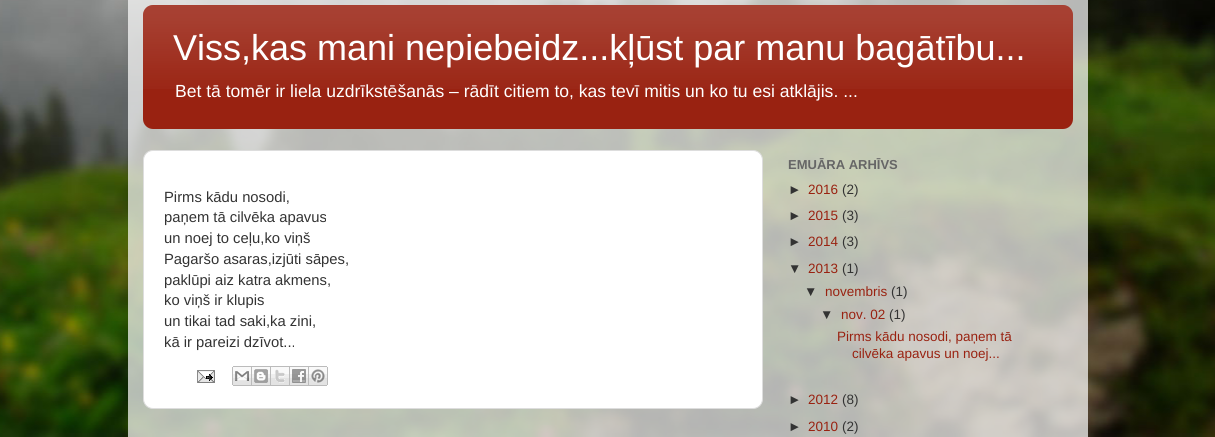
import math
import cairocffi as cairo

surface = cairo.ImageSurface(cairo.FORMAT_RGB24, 1215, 437)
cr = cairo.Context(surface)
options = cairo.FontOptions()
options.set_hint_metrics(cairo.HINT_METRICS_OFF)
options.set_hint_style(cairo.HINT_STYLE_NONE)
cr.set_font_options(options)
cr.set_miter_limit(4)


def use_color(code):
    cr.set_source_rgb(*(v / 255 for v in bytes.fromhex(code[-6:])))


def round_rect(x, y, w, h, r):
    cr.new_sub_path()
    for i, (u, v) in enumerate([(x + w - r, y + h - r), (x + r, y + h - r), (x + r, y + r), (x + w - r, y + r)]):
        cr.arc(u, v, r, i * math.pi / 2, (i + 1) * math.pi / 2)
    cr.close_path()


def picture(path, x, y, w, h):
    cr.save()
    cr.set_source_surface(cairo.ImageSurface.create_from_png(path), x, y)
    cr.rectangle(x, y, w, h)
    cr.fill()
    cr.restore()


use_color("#ffffff")
cr.paint()
picture("img1.png", 0, 0, 1215, 437)
cr.set_source_rgba(1, 1, 1, 0.7)
cr.rectangle(128, 0, 960, 437)
cr.fill()
use_color("#992211")
round_rect(143, 5, 930, 124, 10)
cr.fill()
picture("img2.png", 143, 5, 930, 84)
cr.select_font_face("Liberation Sans")
cr.set_font_size(36)
use_color("#ffffff")
cr.move_to(173, 60)
cr.show_text("Viss,kas mani nepiebeidz...kļūst par manu bagātību...")
cr.set_font_size(17.55)
cr.move_to(175, 97)
cr.show_text("Bet tā tomēr ir liela uzdrīkstēšanās – rādīt citiem to, kas tevī mitis un ko tu esi atklājis. ...")
round_rect(143.5, 150.5, 619, 258, 9.5)
cr.fill_preserve()
use_color("#dddddd")
cr.set_line_width(1)
cr.stroke()
cr.set_font_size(14.8)
use_color("#333333")
cr.move_to(164, 202)
cr.show_text("Pirms kādu nosodi,")
cr.move_to(164, 222)
cr.show_text("paņem tā cilvēka apavus")
cr.move_to(164, 243)
cr.show_text("un noej to ceļu,ko viņš")
cr.move_to(164, 264)
cr.show_text("Pagaršo asaras,izjūti sāpes,")
cr.move_to(164, 285)
cr.show_text("paklūpi aiz katra akmens,")
cr.move_to(164, 305)
cr.show_text("ko viņš ir klupis")
cr.move_to(164, 326)
cr.show_text("un tikai tad saki,ka zini,")
cr.move_to(164, 347)
cr.show_text("kā ir pareizi dzīvot...")
picture("img3.png", 197, 370, 18, 13)
picture("img4.png", 232, 366, 20, 20)
picture("img5.png", 252, 366, 19, 20)
picture("img6.png", 271, 366, 19, 20)
picture("img7.png", 290, 366, 19, 20)
picture("img8.png", 309, 366, 19, 20)
cr.select_font_face("Liberation Sans", cairo.FONT_SLANT_NORMAL, cairo.FONT_WEIGHT_BOLD)
cr.set_font_size(13)
use_color("#666666")
cr.move_to(788, 169)
cr.show_text("EMUĀRA ARHĪVS")
cr.select_font_face("Liberation Sans")
cr.set_font_size(13.5)
use_color("#333333")
cr.move_to(788, 194)
cr.show_text("►")
use_color("#992211")
cr.move_to(808, 194)
cr.show_text("2016")
use_color("#333333")
cr.move_to(842, 194)
cr.show_text("(2)")
cr.move_to(788, 220)
cr.show_text("►")
use_color("#992211")
cr.move_to(808, 220)
cr.show_text("2015")
use_color("#333333")
cr.move_to(842, 220)
cr.show_text("(3)")
cr.move_to(788, 246)
cr.show_text("►")
use_color("#992211")
cr.move_to(808, 246)
cr.show_text("2014")
use_color("#333333")
cr.move_to(842, 246)
cr.show_text("(3)")
cr.move_to(788, 273)
cr.show_text("▼")
use_color("#992211")
cr.move_to(808, 273)
cr.show_text("2013")
use_color("#333333")
cr.move_to(842, 273)
cr.show_text("(1)")
cr.move_to(804, 296)
cr.show_text("▼")
use_color("#992211")
cr.move_to(825, 296)
cr.show_text("novembris")
use_color("#333333")
cr.move_to(891, 296)
cr.show_text("(1)")
cr.move_to(820, 319)
cr.show_text("▼")
use_color("#992211")
cr.move_to(841, 319)
cr.show_text("nov. 02")
use_color("#333333")
cr.move_to(889, 319)
cr.show_text("(1)")
use_color("#992211")
cr.move_to(837, 341)
cr.show_text("Pirms kādu nosodi, paņem tā")
cr.move_to(852, 358)
cr.show_text("cilvēka apavus un noej...")
use_color("#333333")
cr.move_to(788, 404)
cr.show_text("►")
use_color("#992211")
cr.move_to(808, 404)
cr.show_text("2012")
use_color("#333333")
cr.move_to(842, 404)
cr.show_text("(8)")
cr.move_to(788, 431)
cr.show_text("►")
use_color("#992211")
cr.move_to(808, 431)
cr.show_text("2010")
use_color("#333333")
cr.move_to(842, 431)
cr.show_text("(2)")
surface.write_to_png("result.png")
